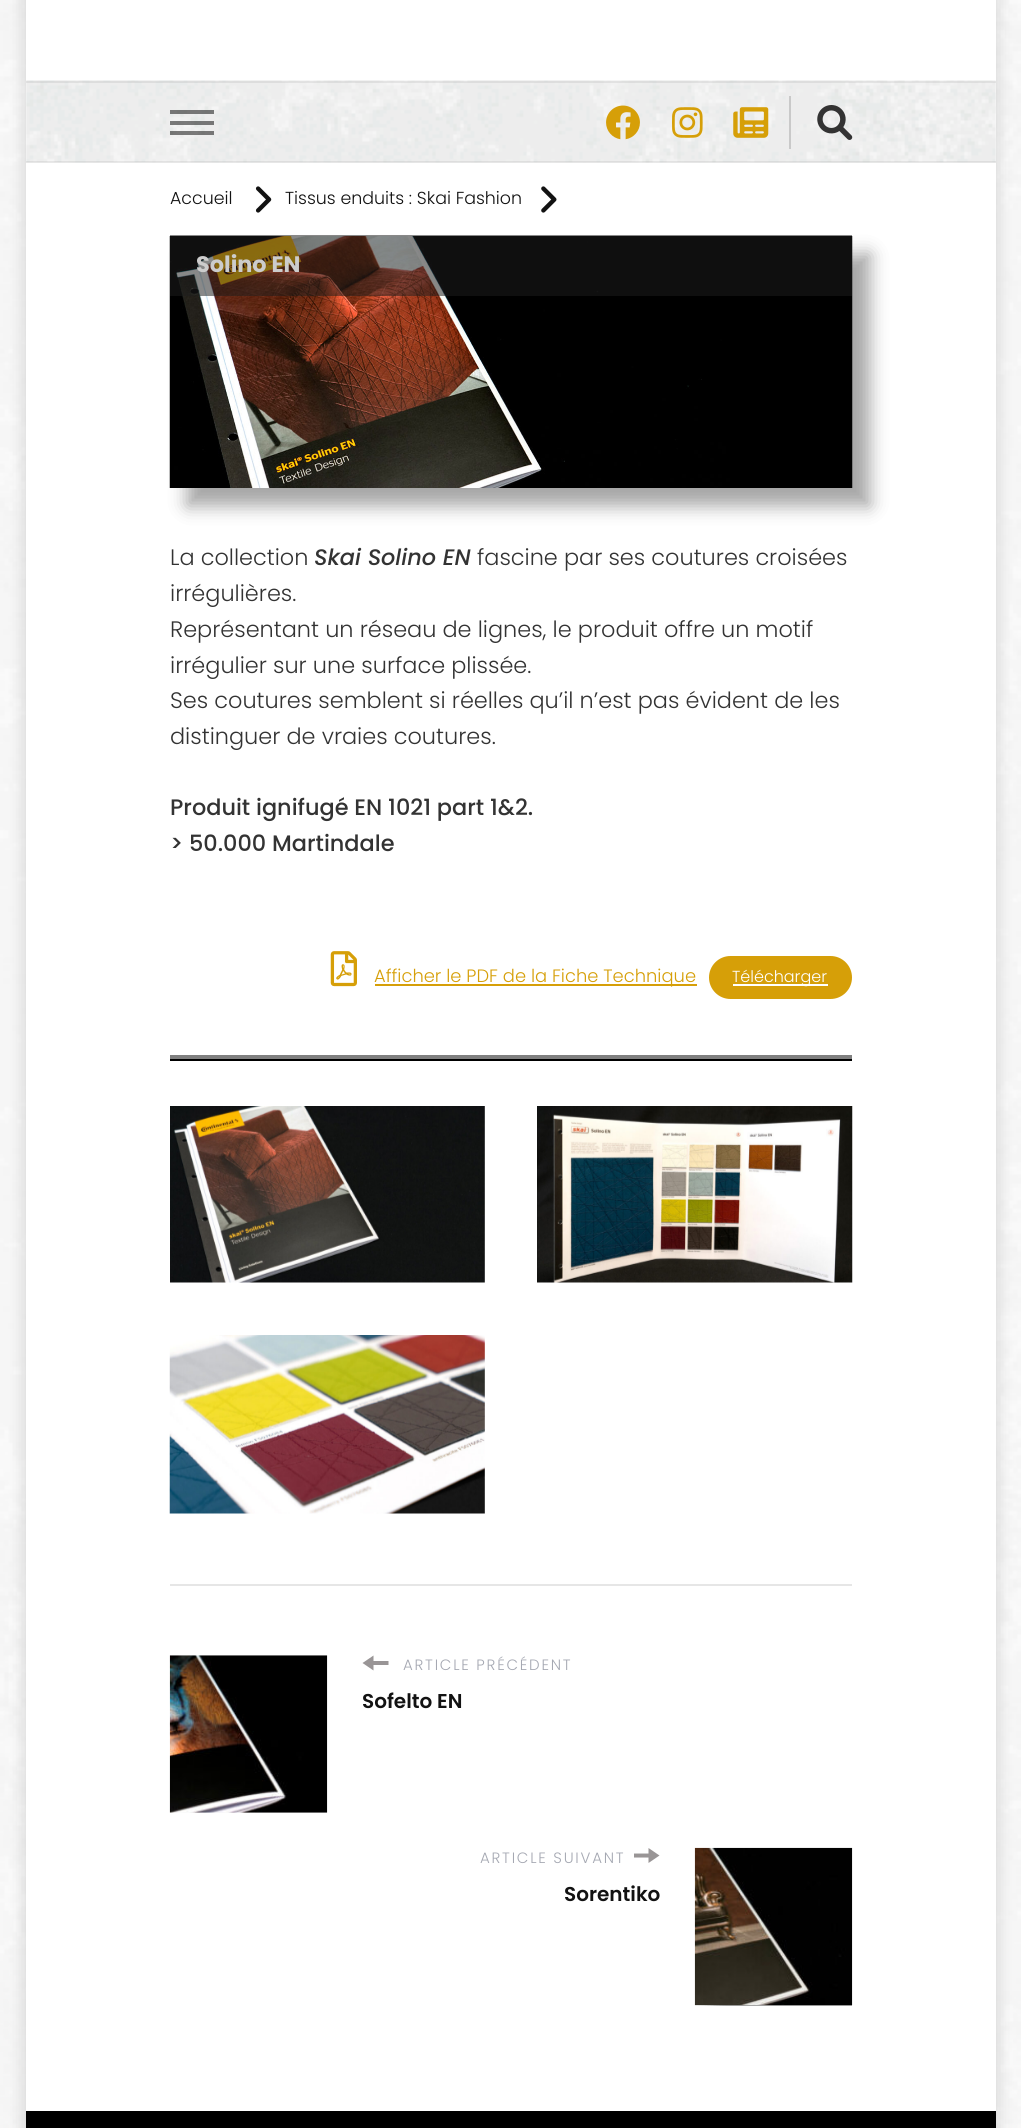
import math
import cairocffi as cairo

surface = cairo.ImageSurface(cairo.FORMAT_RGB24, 1021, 2128)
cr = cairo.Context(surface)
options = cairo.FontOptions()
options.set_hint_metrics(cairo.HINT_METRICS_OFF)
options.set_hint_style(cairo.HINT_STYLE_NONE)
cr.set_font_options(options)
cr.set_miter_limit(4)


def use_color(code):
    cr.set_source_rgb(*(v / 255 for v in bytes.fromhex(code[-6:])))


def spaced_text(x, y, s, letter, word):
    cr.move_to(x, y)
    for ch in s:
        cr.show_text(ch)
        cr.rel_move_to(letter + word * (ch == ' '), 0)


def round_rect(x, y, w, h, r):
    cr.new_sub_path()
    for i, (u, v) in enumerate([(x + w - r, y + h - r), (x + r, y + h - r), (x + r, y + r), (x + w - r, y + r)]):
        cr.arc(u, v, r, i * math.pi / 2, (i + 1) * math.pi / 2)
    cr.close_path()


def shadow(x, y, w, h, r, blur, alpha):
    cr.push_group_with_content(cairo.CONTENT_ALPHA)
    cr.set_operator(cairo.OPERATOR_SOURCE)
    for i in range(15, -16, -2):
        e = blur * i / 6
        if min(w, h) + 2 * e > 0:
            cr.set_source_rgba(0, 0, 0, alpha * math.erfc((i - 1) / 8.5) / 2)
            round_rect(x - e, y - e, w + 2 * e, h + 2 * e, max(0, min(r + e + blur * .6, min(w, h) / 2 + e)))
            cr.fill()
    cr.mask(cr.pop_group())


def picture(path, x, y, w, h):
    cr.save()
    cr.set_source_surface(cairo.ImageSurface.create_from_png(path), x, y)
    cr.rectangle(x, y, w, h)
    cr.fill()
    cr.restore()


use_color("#ffffff")
cr.paint()
picture("img1.png", 0, 0, 1021, 2128)
use_color("#000000")
shadow(26, -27, 970, 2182, 0, 9, 0.16)
use_color("#ffffff")
cr.rectangle(26, 0, 970, 2111)
cr.fill()
picture("img2.png", 26, 80, 970, 83)
cr.set_source_rgba(0, 0, 0, 0.07)
cr.rectangle(26, 81, 970, 2)
cr.fill()
cr.rectangle(26, 161, 970, 2)
cr.fill()
cr.set_source_rgba(0, 0, 0, 0.5)
cr.rectangle(170, 110, 44, 4)
cr.fill()
cr.rectangle(170, 121, 44, 4)
cr.fill()
cr.rectangle(170, 131, 44, 4)
cr.fill()
picture("img3.png", 606, 105, 34, 35)
picture("img4.png", 672, 107, 31, 31)
picture("img5.png", 733, 107, 36, 31)
use_color("#c9c9c9")
cr.rectangle(789, 96, 2, 53)
cr.fill()
picture("img6.png", 817, 105, 36, 35)
cr.select_font_face("Poppins Light")
cr.set_font_size(17.4)
use_color("#121212")
cr.move_to(170, 204)
cr.show_text("Accueil")
picture("img7.png", 255, 186, 17, 27)
cr.move_to(285, 204)
cr.show_text("Tissus enduits : Skai Fashion")
picture("img8.png", 541, 186, 16, 27)
use_color("#000000")
shadow(187, 254, 683, 252, 0, 9, 0.35)
picture("img9.png", 169, 236, 684, 252)
cr.set_source_rgba(0.114, 0.114, 0.114, 0.52)
cr.rectangle(170, 235, 682, 61)
cr.fill()
cr.select_font_face("Poppins", cairo.FONT_SLANT_NORMAL, cairo.FONT_WEIGHT_BOLD)
cr.set_font_size(22.4)
use_color("#cccccc")
cr.move_to(196, 272)
cr.show_text("Solino EN")
cr.select_font_face("Poppins Light")
use_color("#333333")
cr.move_to(170, 565)
cr.show_text("La collection")
cr.select_font_face("Poppins Medium", cairo.FONT_SLANT_ITALIC)
cr.move_to(314, 565)
cr.show_text("Skai Solino EN")
cr.select_font_face("Poppins Light")
cr.move_to(477, 565)
cr.show_text("fascine par ses coutures croisées")
cr.move_to(170, 601)
cr.show_text("irrégulières.")
cr.move_to(170, 637)
cr.show_text("Représentant un réseau de lignes, le produit offre un motif")
cr.move_to(170, 673)
cr.show_text("irrégulier sur une surface plissée.")
cr.move_to(170, 708)
cr.show_text("Ses coutures semblent si réelles qu’il n’est pas évident de les")
cr.move_to(170, 744)
cr.show_text("distinguer de vraies coutures.")
cr.select_font_face("Poppins Medium")
cr.move_to(170, 815)
cr.show_text("Produit ignifugé EN 1021 part 1&2.")
cr.move_to(170, 851)
cr.show_text("> 50.000 Martindale")
picture("img10.png", 330, 951, 27, 36)
use_color("#d69f08")
cr.rectangle(375, 984, 322, 2)
cr.fill()
cr.select_font_face("Poppins Light")
cr.set_font_size(17.9)
cr.move_to(374, 982)
cr.show_text("Afficher le PDF de la Fiche Technique")
round_rect(709, 956, 143, 43, 21.5)
cr.fill()
use_color("#ffffff")
cr.rectangle(733, 984, 95, 2)
cr.fill()
cr.set_font_size(16)
cr.move_to(732, 982)
cr.show_text("Télécharger")
use_color("#808080")
cr.rectangle(170, 1055, 682, 4)
cr.fill()
use_color("#000000")
cr.rectangle(170, 1059, 682, 2)
cr.fill()
picture("img11.png", 170, 1106, 315, 177)
picture("img12.png", 537, 1106, 316, 177)
picture("img13.png", 169, 1335, 316, 179)
use_color("#e6e6e6")
cr.rectangle(170, 1584, 682, 2)
cr.fill()
use_color("#f5f5f5")
cr.rectangle(170, 1812, 157, 1)
cr.fill()
picture("img14.png", 169, 1655, 159, 158)
use_color("#999596")
cr.new_path()
cr.move_to(373.5, 1665)
cr.line_to(388.5, 1665)
cr.line_to(388.5, 1661)
cr.line_to(373.5, 1661)
cr.line_to(373.5, 1655.5)
cr.line_to(362.5, 1663)
cr.line_to(373.5, 1670.5)
cr.close_path()
cr.fill()
cr.set_font_size(15)
use_color("#a5a8b2")
spaced_text(403, 1670, "ARTICLE PRÉCÉDENT", 1.75, 0)
cr.select_font_face("Poppins SemiBold")
cr.set_font_size(20)
use_color("#121212")
cr.move_to(362, 1708)
cr.show_text("Sofelto EN")
cr.select_font_face("Poppins Light")
cr.set_font_size(15)
use_color("#a5a8b2")
spaced_text(480, 1863, "ARTICLE SUIVANT", 1.75, 0)
cr.save()
cr.rectangle(634, 1848, 26, 16)
cr.clip()
use_color("#999596")
cr.new_path()
cr.move_to(648.5, 1853.5)
cr.line_to(633.5, 1853.5)
cr.line_to(633.5, 1857.5)
cr.line_to(648.5, 1857.5)
cr.line_to(648.5, 1863)
cr.line_to(659.5, 1855.5)
cr.line_to(648.5, 1848)
cr.close_path()
cr.fill()
cr.restore()
cr.select_font_face("Poppins SemiBold")
cr.set_font_size(20)
use_color("#121212")
cr.move_to(564, 1901)
cr.show_text("Sorentiko")
use_color("#f5f5f5")
cr.rectangle(695, 2005, 157, 1)
cr.fill()
cr.save()
cr.rectangle(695, 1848, 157, 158)
cr.clip()
use_color("#000000")
shadow(712, 1866, 158, 157, 0, 9, 0.35)
cr.restore()
picture("img15.png", 694, 1847, 159, 159)
use_color("#000000")
cr.rectangle(26, 2111, 970, 17)
cr.fill()
surface.write_to_png("result.png")
